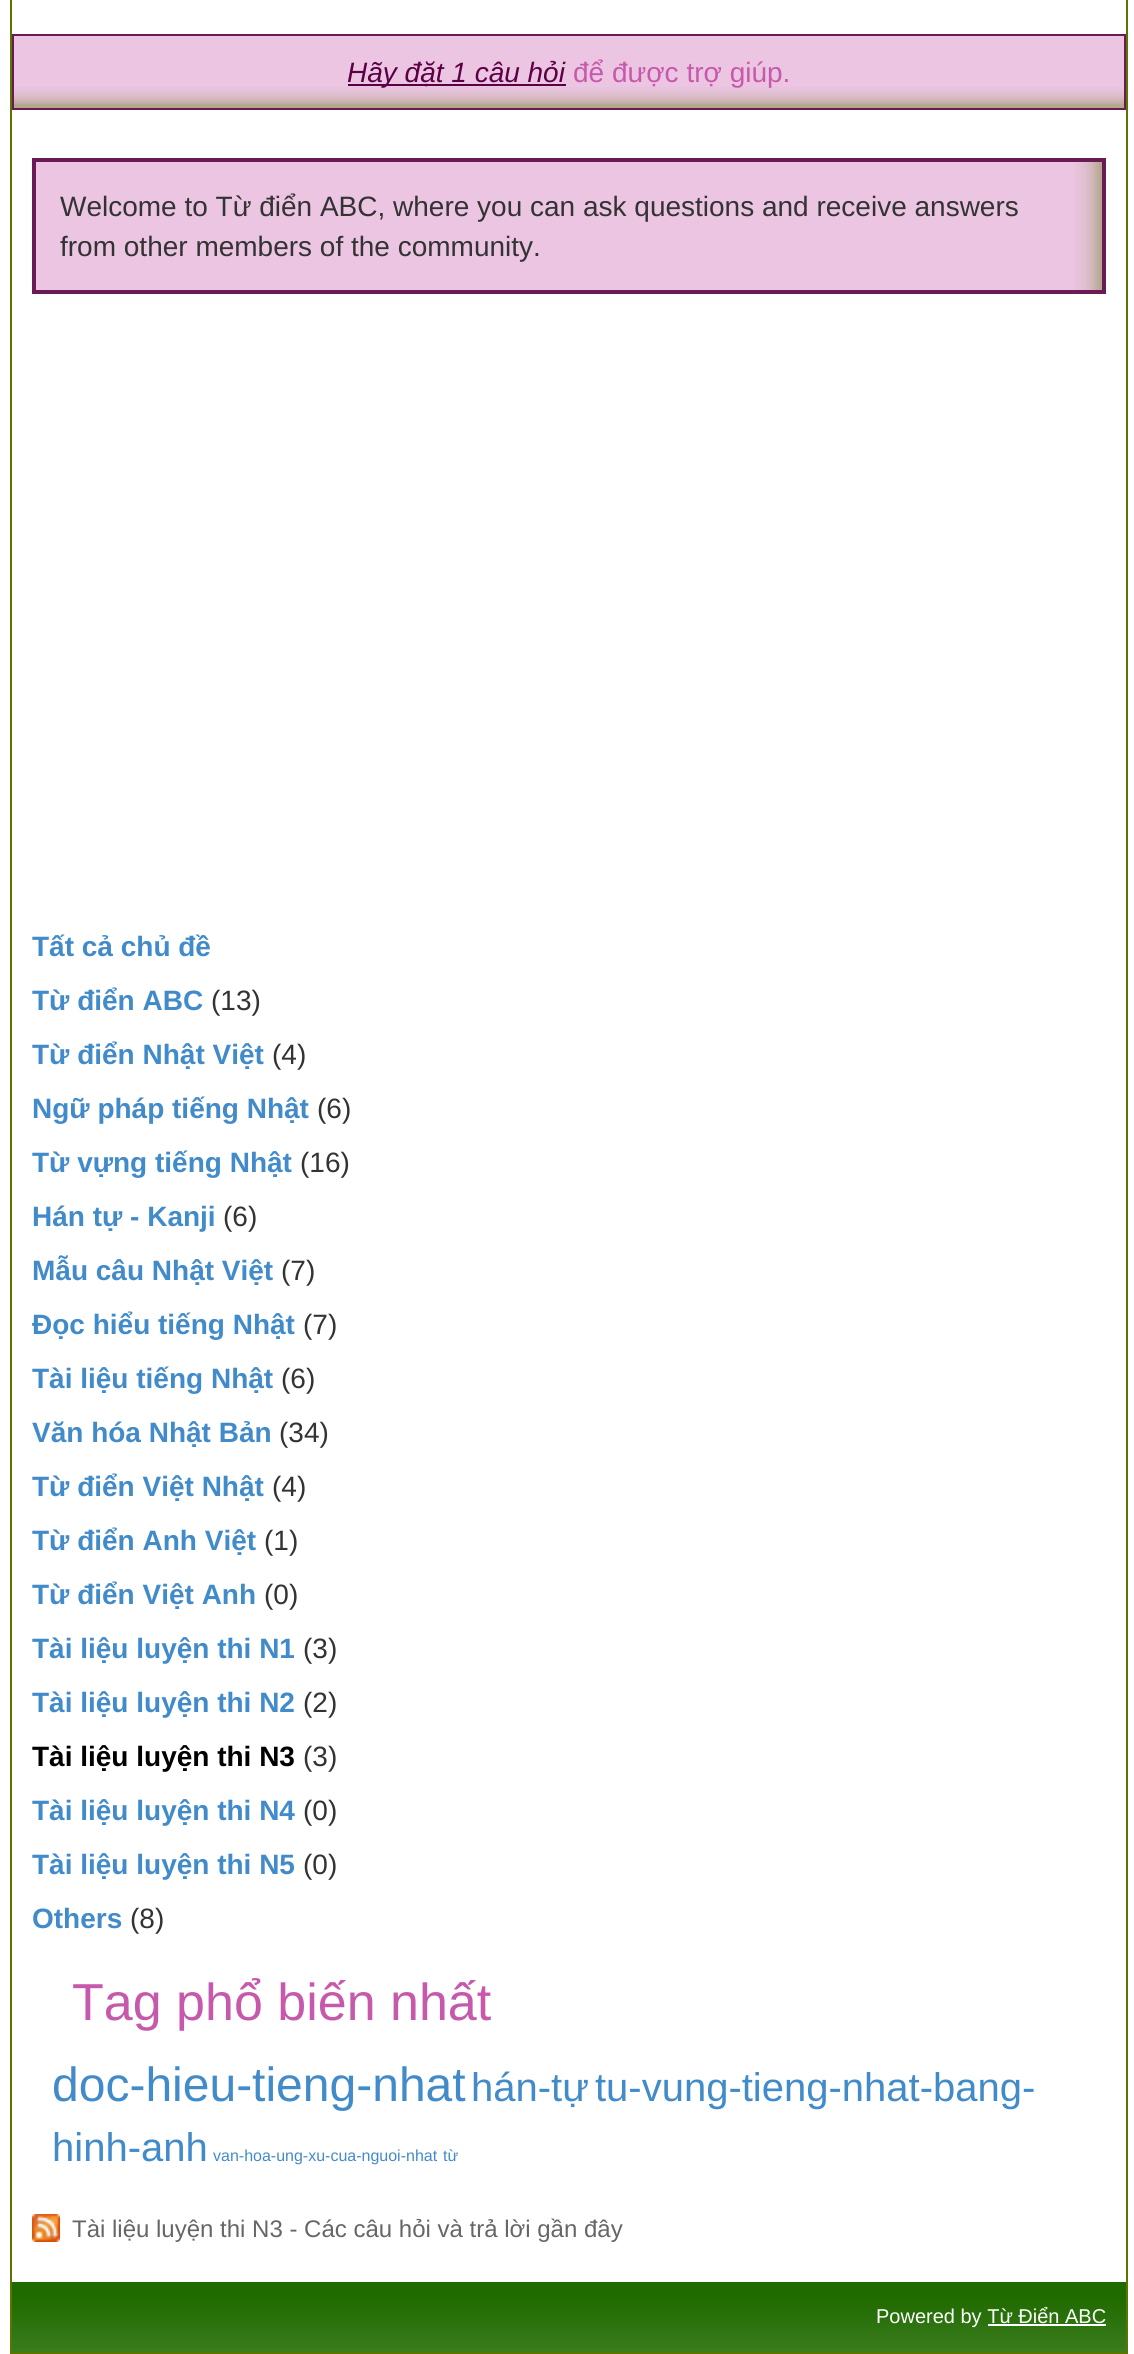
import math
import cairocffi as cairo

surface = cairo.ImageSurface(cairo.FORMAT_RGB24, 1134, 2354)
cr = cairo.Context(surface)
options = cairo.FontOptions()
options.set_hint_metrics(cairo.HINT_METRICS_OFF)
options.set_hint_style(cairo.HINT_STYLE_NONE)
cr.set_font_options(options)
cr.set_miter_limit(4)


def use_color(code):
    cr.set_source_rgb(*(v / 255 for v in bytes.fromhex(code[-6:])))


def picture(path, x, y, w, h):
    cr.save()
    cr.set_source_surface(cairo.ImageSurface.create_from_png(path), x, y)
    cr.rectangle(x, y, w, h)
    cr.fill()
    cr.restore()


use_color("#ffffff")
cr.paint()
cr.rectangle(11, -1, 1116, 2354)
use_color("#597700")
cr.stroke()
use_color("#ebc5e2")
cr.rectangle(14, 36, 1110, 51)
cr.fill()
picture("img1.png", 14, 87, 1110, 21)
cr.rectangle(13, 35, 1112, 74)
use_color("#6a1b56")
cr.stroke()
use_color("#5c0045")
cr.rectangle(348, 84, 218, 2)
cr.fill()
cr.select_font_face("Liberation Sans", cairo.FONT_SLANT_ITALIC)
cr.set_font_size(28)
cr.move_to(347, 82)
cr.show_text("Hãy đặt 1 câu hỏi")
cr.select_font_face("Liberation Sans")
use_color("#c659ab")
cr.move_to(573, 82)
cr.show_text("để được trợ giúp.")
use_color("#ebc5e2")
cr.rectangle(36, 162, 1038, 128)
cr.fill()
picture("img2.png", 1074, 162, 28, 128)
cr.rectangle(34, 160, 1070, 132)
use_color("#6a1b56")
cr.set_line_width(4)
cr.stroke()
use_color("#333333")
cr.move_to(60, 216)
cr.show_text("Welcome to Từ điển ABC, where you can ask questions and receive answers")
cr.move_to(60, 256)
cr.show_text("from other members of the community.")
cr.select_font_face("Liberation Sans", cairo.FONT_SLANT_NORMAL, cairo.FONT_WEIGHT_BOLD)
use_color("#428bca")
cr.move_to(32, 956)
cr.show_text("Tất cả chủ đề")
cr.move_to(32, 1010)
cr.show_text("Từ điển ABC")
cr.select_font_face("Liberation Sans")
use_color("#333333")
cr.move_to(211, 1010)
cr.show_text("(13)")
cr.select_font_face("Liberation Sans", cairo.FONT_SLANT_NORMAL, cairo.FONT_WEIGHT_BOLD)
use_color("#428bca")
cr.move_to(32, 1064)
cr.show_text("Từ điển Nhật Việt")
cr.select_font_face("Liberation Sans")
use_color("#333333")
cr.move_to(272, 1064)
cr.show_text("(4)")
cr.select_font_face("Liberation Sans", cairo.FONT_SLANT_NORMAL, cairo.FONT_WEIGHT_BOLD)
use_color("#428bca")
cr.move_to(32, 1118)
cr.show_text("Ngữ pháp tiếng Nhật")
cr.select_font_face("Liberation Sans")
use_color("#333333")
cr.move_to(317, 1118)
cr.show_text("(6)")
cr.select_font_face("Liberation Sans", cairo.FONT_SLANT_NORMAL, cairo.FONT_WEIGHT_BOLD)
use_color("#428bca")
cr.move_to(32, 1172)
cr.show_text("Từ vựng tiếng Nhật")
cr.select_font_face("Liberation Sans")
use_color("#333333")
cr.move_to(300, 1172)
cr.show_text("(16)")
cr.select_font_face("Liberation Sans", cairo.FONT_SLANT_NORMAL, cairo.FONT_WEIGHT_BOLD)
use_color("#428bca")
cr.move_to(32, 1226)
cr.show_text("Hán tự - Kanji")
cr.select_font_face("Liberation Sans")
use_color("#333333")
cr.move_to(223, 1226)
cr.show_text("(6)")
cr.select_font_face("Liberation Sans", cairo.FONT_SLANT_NORMAL, cairo.FONT_WEIGHT_BOLD)
use_color("#428bca")
cr.move_to(32, 1280)
cr.show_text("Mẫu câu Nhật Việt")
cr.select_font_face("Liberation Sans")
use_color("#333333")
cr.move_to(281, 1280)
cr.show_text("(7)")
cr.select_font_face("Liberation Sans", cairo.FONT_SLANT_NORMAL, cairo.FONT_WEIGHT_BOLD)
use_color("#428bca")
cr.move_to(32, 1334)
cr.show_text("Đọc hiểu tiếng Nhật")
cr.select_font_face("Liberation Sans")
use_color("#333333")
cr.move_to(303, 1334)
cr.show_text("(7)")
cr.select_font_face("Liberation Sans", cairo.FONT_SLANT_NORMAL, cairo.FONT_WEIGHT_BOLD)
use_color("#428bca")
cr.move_to(32, 1388)
cr.show_text("Tài liệu tiếng Nhật")
cr.select_font_face("Liberation Sans")
use_color("#333333")
cr.move_to(281, 1388)
cr.show_text("(6)")
cr.select_font_face("Liberation Sans", cairo.FONT_SLANT_NORMAL, cairo.FONT_WEIGHT_BOLD)
use_color("#428bca")
cr.move_to(32, 1442)
cr.show_text("Văn hóa Nhật Bản")
cr.select_font_face("Liberation Sans")
use_color("#333333")
cr.move_to(279, 1442)
cr.show_text("(34)")
cr.select_font_face("Liberation Sans", cairo.FONT_SLANT_NORMAL, cairo.FONT_WEIGHT_BOLD)
use_color("#428bca")
cr.move_to(32, 1496)
cr.show_text("Từ điển Việt Nhật")
cr.select_font_face("Liberation Sans")
use_color("#333333")
cr.move_to(272, 1496)
cr.show_text("(4)")
cr.select_font_face("Liberation Sans", cairo.FONT_SLANT_NORMAL, cairo.FONT_WEIGHT_BOLD)
use_color("#428bca")
cr.move_to(32, 1550)
cr.show_text("Từ điển Anh Việt")
cr.select_font_face("Liberation Sans")
use_color("#333333")
cr.move_to(264, 1550)
cr.show_text("(1)")
cr.select_font_face("Liberation Sans", cairo.FONT_SLANT_NORMAL, cairo.FONT_WEIGHT_BOLD)
use_color("#428bca")
cr.move_to(32, 1604)
cr.show_text("Từ điển Việt Anh")
cr.select_font_face("Liberation Sans")
use_color("#333333")
cr.move_to(264, 1604)
cr.show_text("(0)")
cr.select_font_face("Liberation Sans", cairo.FONT_SLANT_NORMAL, cairo.FONT_WEIGHT_BOLD)
use_color("#428bca")
cr.move_to(32, 1658)
cr.show_text("Tài liệu luyện thi N1")
cr.select_font_face("Liberation Sans")
use_color("#333333")
cr.move_to(303, 1658)
cr.show_text("(3)")
cr.select_font_face("Liberation Sans", cairo.FONT_SLANT_NORMAL, cairo.FONT_WEIGHT_BOLD)
use_color("#428bca")
cr.move_to(32, 1712)
cr.show_text("Tài liệu luyện thi N2")
cr.select_font_face("Liberation Sans")
use_color("#333333")
cr.move_to(303, 1712)
cr.show_text("(2)")
cr.select_font_face("Liberation Sans", cairo.FONT_SLANT_NORMAL, cairo.FONT_WEIGHT_BOLD)
use_color("#000000")
cr.move_to(32, 1766)
cr.show_text("Tài liệu luyện thi N3")
cr.select_font_face("Liberation Sans")
use_color("#333333")
cr.move_to(303, 1766)
cr.show_text("(3)")
cr.select_font_face("Liberation Sans", cairo.FONT_SLANT_NORMAL, cairo.FONT_WEIGHT_BOLD)
use_color("#428bca")
cr.move_to(32, 1820)
cr.show_text("Tài liệu luyện thi N4")
cr.select_font_face("Liberation Sans")
use_color("#333333")
cr.move_to(303, 1820)
cr.show_text("(0)")
cr.select_font_face("Liberation Sans", cairo.FONT_SLANT_NORMAL, cairo.FONT_WEIGHT_BOLD)
use_color("#428bca")
cr.move_to(32, 1874)
cr.show_text("Tài liệu luyện thi N5")
cr.select_font_face("Liberation Sans")
use_color("#333333")
cr.move_to(303, 1874)
cr.show_text("(0)")
cr.select_font_face("Liberation Sans", cairo.FONT_SLANT_NORMAL, cairo.FONT_WEIGHT_BOLD)
use_color("#428bca")
cr.move_to(32, 1928)
cr.show_text("Others")
cr.select_font_face("Liberation Sans")
use_color("#333333")
cr.move_to(130, 1928)
cr.show_text("(8)")
cr.set_font_size(52)
use_color("#c659ab")
cr.move_to(72, 2020)
cr.show_text("Tag phổ biến nhất")
cr.set_font_size(48)
use_color("#428bca")
cr.move_to(52, 2101)
cr.show_text("doc-hieu-tieng-nhat")
cr.set_font_size(40)
cr.move_to(471, 2101)
cr.show_text("hán-tự")
cr.move_to(595, 2101)
cr.show_text("tu-vung-tieng-nhat-bang-")
cr.move_to(52, 2161)
cr.show_text("hinh-anh")
cr.set_font_size(16)
cr.move_to(213, 2161)
cr.show_text("van-hoa-ung-xu-cua-nguoi-nhat")
cr.move_to(443, 2161)
cr.show_text("từ")
picture("img3.png", 32, 2214, 28, 28)
cr.set_font_size(24)
use_color("#666666")
cr.move_to(72, 2237)
cr.show_text("Tài liệu luyện thi N3 - Các câu hỏi và trả lời gần đây")
use_color("#3b7c1f")
cr.rectangle(12, 2348, 1114, 4)
cr.fill()
picture("img4.png", 12, 2282, 1114, 66)
cr.set_font_size(20)
use_color("#ffffff")
cr.move_to(876, 2323)
cr.show_text("Powered by Từ Điển ABC")
cr.rectangle(988, 2324, 118, 2)
cr.fill()
surface.write_to_png("result.png")
